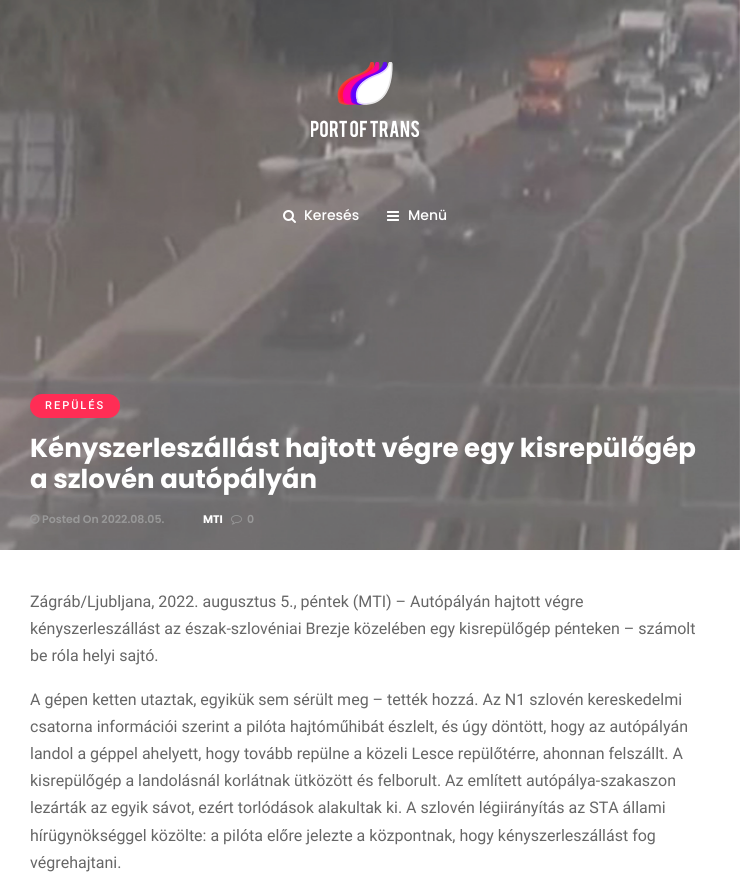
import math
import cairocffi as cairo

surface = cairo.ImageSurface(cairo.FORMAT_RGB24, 740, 877)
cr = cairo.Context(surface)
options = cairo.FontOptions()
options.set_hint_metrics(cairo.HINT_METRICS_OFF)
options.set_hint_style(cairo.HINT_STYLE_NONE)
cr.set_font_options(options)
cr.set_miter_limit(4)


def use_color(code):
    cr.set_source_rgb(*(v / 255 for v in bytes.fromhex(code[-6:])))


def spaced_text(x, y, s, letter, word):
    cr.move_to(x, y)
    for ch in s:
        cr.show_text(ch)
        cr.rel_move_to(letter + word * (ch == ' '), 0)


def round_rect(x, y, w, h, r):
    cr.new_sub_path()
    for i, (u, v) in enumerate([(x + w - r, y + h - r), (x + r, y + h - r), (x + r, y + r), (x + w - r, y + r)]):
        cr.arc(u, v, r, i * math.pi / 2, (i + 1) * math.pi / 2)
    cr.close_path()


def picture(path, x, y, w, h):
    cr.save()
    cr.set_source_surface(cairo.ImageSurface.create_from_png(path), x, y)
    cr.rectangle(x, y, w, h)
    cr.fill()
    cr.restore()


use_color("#ffffff")
cr.paint()
picture("img4.png", 0, 0, 740, 550)
picture("img1.png", 311, 62, 108, 75)
picture("img2.png", 283, 210, 13, 13)
cr.select_font_face("Poppins Medium")
cr.set_font_size(14)
use_color("#ffffff")
cr.move_to(304, 220)
cr.show_text("Keresés")
picture("img3.png", 387, 211, 12, 10)
cr.move_to(408, 220)
cr.show_text("Menü")
use_color("#ff2d55")
round_rect(30, 394, 90, 24, 12)
cr.fill()
cr.select_font_face("Roboto Medium")
cr.set_font_size(11)
use_color("#ffffff")
spaced_text(45, 409, "REPÜLÉS", 2, 0)
cr.select_font_face("Poppins", cairo.FONT_SLANT_NORMAL, cairo.FONT_WEIGHT_BOLD)
cr.set_font_size(26)
cr.move_to(30, 457)
cr.show_text("Kényszerleszállást hajtott végre egy kisrepülőgép")
cr.move_to(30, 488)
cr.show_text("a szlovén autópályán")
picture("img5.png", 30, 514, 10, 10)
cr.select_font_face("Poppins SemiBold")
cr.set_font_size(11)
use_color("#999999")
cr.move_to(42, 523)
cr.show_text("Posted On 2022.08.05.")
cr.select_font_face("Poppins", cairo.FONT_SLANT_NORMAL, cairo.FONT_WEIGHT_BOLD)
use_color("#ffffff")
cr.move_to(203, 523)
cr.show_text("MTI")
picture("img6.png", 231, 515, 11, 10)
cr.select_font_face("Poppins SemiBold")
use_color("#999999")
cr.move_to(247, 523)
cr.show_text("0")
cr.select_font_face("Roboto")
cr.set_font_size(16)
use_color("#666666")
cr.move_to(30, 607)
cr.show_text("Zágráb/Ljubljana, 2022. augusztus 5., péntek (MTI) – Autópályán hajtott végre")
cr.move_to(30, 634)
cr.show_text("kényszerleszállást az észak-szlovéniai Brezje közelében egy kisrepülőgép pénteken – számolt")
cr.move_to(30, 661)
cr.show_text("be róla helyi sajtó.")
cr.move_to(30, 705)
cr.show_text("A gépen ketten utaztak, egyikük sem sérült meg – tették hozzá. Az N1 szlovén kereskedelmi")
cr.move_to(30, 732)
cr.show_text("csatorna információi szerint a pilóta hajtóműhibát észlelt, és úgy döntött, hogy az autópályán")
cr.move_to(30, 759)
cr.show_text("landol a géppel ahelyett, hogy tovább repülne a közeli Lesce repülőtérre, ahonnan felszállt. A")
cr.move_to(30, 786)
cr.show_text("kisrepülőgép a landolásnál korlátnak ütközött és felborult. Az említett autópálya-szakaszon")
cr.move_to(30, 813)
cr.show_text("lezárták az egyik sávot, ezért torlódások alakultak ki. A szlovén légiirányítás az STA állami")
cr.move_to(30, 841)
cr.show_text("hírügynökséggel közölte: a pilóta előre jelezte a központnak, hogy kényszerleszállást fog")
cr.move_to(30, 868)
cr.show_text("végrehajtani.")
surface.write_to_png("result.png")
